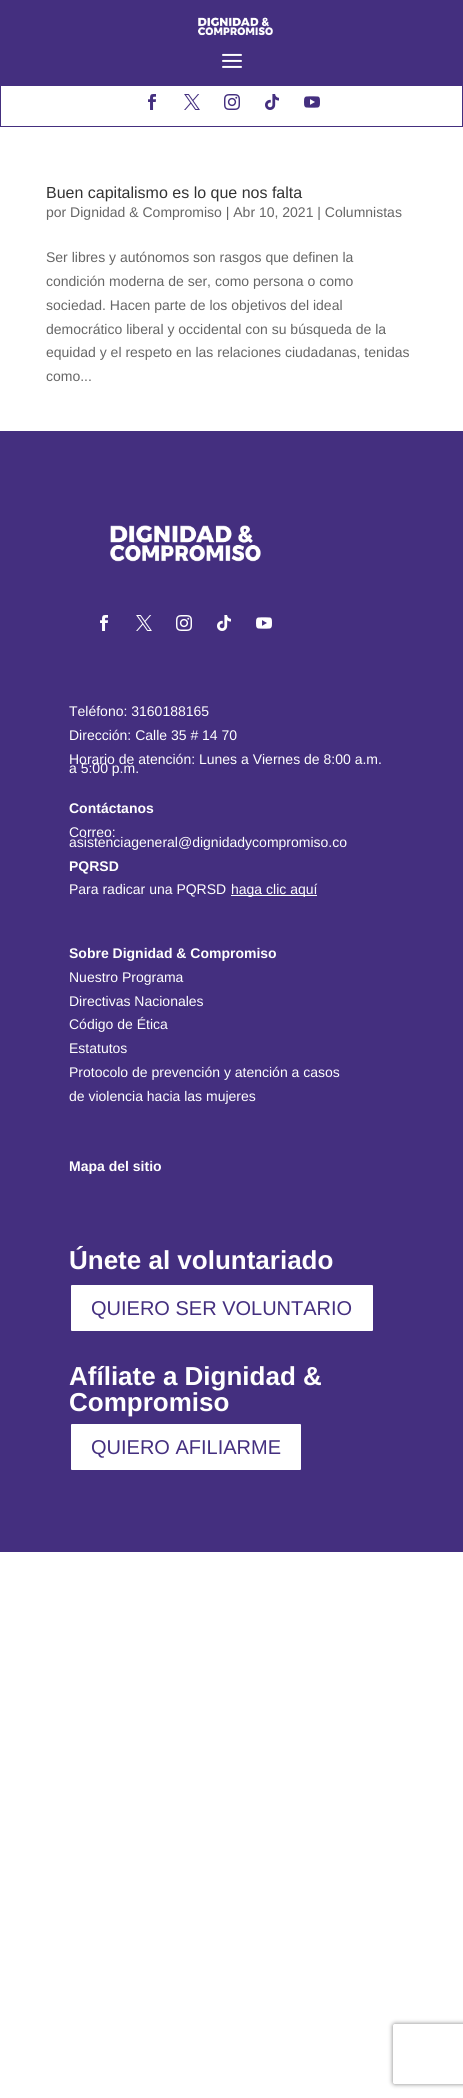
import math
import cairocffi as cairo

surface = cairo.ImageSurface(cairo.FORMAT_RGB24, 463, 2098)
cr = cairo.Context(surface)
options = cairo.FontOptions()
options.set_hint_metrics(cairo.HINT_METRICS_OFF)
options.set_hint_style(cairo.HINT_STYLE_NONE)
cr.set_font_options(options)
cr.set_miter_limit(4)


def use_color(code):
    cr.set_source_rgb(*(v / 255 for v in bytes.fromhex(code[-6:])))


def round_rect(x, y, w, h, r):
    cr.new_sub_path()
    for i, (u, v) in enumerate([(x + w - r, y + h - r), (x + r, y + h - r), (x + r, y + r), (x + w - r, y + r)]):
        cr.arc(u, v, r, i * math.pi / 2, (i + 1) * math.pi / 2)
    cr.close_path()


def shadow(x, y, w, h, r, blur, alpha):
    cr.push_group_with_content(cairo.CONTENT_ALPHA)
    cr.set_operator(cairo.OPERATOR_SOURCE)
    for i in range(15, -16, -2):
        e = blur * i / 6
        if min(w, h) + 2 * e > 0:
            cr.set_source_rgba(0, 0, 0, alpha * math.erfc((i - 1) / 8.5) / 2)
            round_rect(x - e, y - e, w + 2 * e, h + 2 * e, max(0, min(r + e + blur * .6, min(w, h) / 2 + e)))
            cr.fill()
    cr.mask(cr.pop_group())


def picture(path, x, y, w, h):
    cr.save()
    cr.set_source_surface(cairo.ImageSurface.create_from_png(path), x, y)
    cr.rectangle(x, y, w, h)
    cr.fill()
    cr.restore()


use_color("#ffffff")
cr.paint()
use_color("#442f7f")
cr.rectangle(0, 0, 463, 85)
cr.fill()
picture("img1.png", 198, 17, 75, 19)
picture("img2.png", 222, 53, 20, 15)
cr.rectangle(0.5, 85.5, 462, 41)
cr.set_line_width(1)
cr.stroke()
picture("img3.png", 148, 94, 8, 16)
picture("img4.png", 184, 94, 16, 16)
picture("img5.png", 224, 94, 16, 16)
picture("img6.png", 265, 94, 14, 16)
picture("img7.png", 304, 96, 16, 12)
cr.select_font_face("Liberation Sans")
cr.set_font_size(16)
use_color("#333333")
cr.move_to(46, 198)
cr.show_text("Buen capitalismo es lo que nos falta")
cr.set_font_size(14)
use_color("#666666")
cr.move_to(46, 217)
cr.show_text("por Dignidad & Compromiso | Abr 10, 2021 | Columnistas")
cr.move_to(46, 262)
cr.show_text("Ser libres y autónomos son rasgos que definen la")
cr.move_to(46, 286)
cr.show_text("condición moderna de ser, como persona o como")
cr.move_to(46, 310)
cr.show_text("sociedad. Hacen parte de los objetivos del ideal")
cr.move_to(46, 334)
cr.show_text("democrático liberal y occidental con su búsqueda de la")
cr.move_to(46, 357)
cr.show_text("equidad y el respeto en las relaciones ciudadanas, tenidas")
cr.move_to(46, 381)
cr.show_text("como...")
use_color("#442f7f")
cr.rectangle(0, 431, 463, 1121)
cr.fill()
picture("img8.png", 110, 525, 151, 37)
picture("img9.png", 100, 615, 8, 16)
picture("img10.png", 136, 615, 16, 16)
picture("img11.png", 176, 615, 16, 16)
picture("img12.png", 217, 615, 14, 16)
picture("img13.png", 256, 617, 16, 12)
use_color("#ffffff")
cr.move_to(69, 716)
cr.show_text("Teléfono: 3160188165")
cr.move_to(69, 740)
cr.show_text("Dirección: Calle 35 # 14 70")
cr.move_to(69, 764)
cr.show_text("Horario de atención: Lunes a Viernes de 8:00 a.m.")
cr.move_to(69, 773)
cr.show_text("a 5:00 p.m.")
cr.select_font_face("Liberation Sans", cairo.FONT_SLANT_NORMAL, cairo.FONT_WEIGHT_BOLD)
cr.move_to(69, 813)
cr.show_text("Contáctanos")
cr.select_font_face("Liberation Sans")
cr.move_to(69, 837)
cr.show_text("Correo:")
cr.move_to(69, 847)
cr.show_text("asistenciageneral@dignidadycompromiso.co")
cr.select_font_face("Liberation Sans", cairo.FONT_SLANT_NORMAL, cairo.FONT_WEIGHT_BOLD)
cr.move_to(69, 871)
cr.show_text("PQRSD")
cr.select_font_face("Liberation Sans")
cr.move_to(69, 894)
cr.show_text("Para radicar una PQRSD")
cr.rectangle(231, 895, 86, 1)
cr.fill()
cr.move_to(231, 894)
cr.show_text("haga clic aquí")
cr.select_font_face("Liberation Sans", cairo.FONT_SLANT_NORMAL, cairo.FONT_WEIGHT_BOLD)
cr.move_to(69, 958)
cr.show_text("Sobre Dignidad & Compromiso")
cr.select_font_face("Liberation Sans")
cr.move_to(69, 982)
cr.show_text("Nuestro Programa")
cr.move_to(69, 1006)
cr.show_text("Directivas Nacionales")
cr.move_to(69, 1029)
cr.show_text("Código de Ética")
cr.move_to(69, 1053)
cr.show_text("Estatutos")
cr.move_to(69, 1077)
cr.show_text("Protocolo de prevención y atención a casos")
cr.move_to(69, 1101)
cr.show_text("de violencia hacia las mujeres")
cr.select_font_face("Liberation Sans", cairo.FONT_SLANT_NORMAL, cairo.FONT_WEIGHT_BOLD)
cr.move_to(69, 1171)
cr.show_text("Mapa del sitio")
cr.set_font_size(26)
cr.move_to(69, 1269)
cr.show_text("Únete al voluntariado")
round_rect(70, 1284, 304, 48, 2)
cr.fill_preserve()
use_color("#442f7f")
cr.set_line_width(2)
cr.stroke()
cr.select_font_face("Liberation Sans")
cr.set_font_size(20)
cr.move_to(91, 1315)
cr.show_text("QUIERO SER VOLUNTARIO")
cr.select_font_face("Liberation Sans", cairo.FONT_SLANT_NORMAL, cairo.FONT_WEIGHT_BOLD)
cr.set_font_size(26)
use_color("#ffffff")
cr.move_to(69, 1385)
cr.show_text("Afíliate a Dignidad &")
cr.move_to(69, 1411)
cr.show_text("Compromiso")
round_rect(70, 1423, 232, 48, 2)
cr.fill_preserve()
use_color("#442f7f")
cr.stroke()
cr.select_font_face("Liberation Sans")
cr.set_font_size(20)
cr.move_to(91, 1454)
cr.show_text("QUIERO AFILIARME")
cr.save()
cr.set_fill_rule(cairo.FILL_RULE_EVEN_ODD)
cr.new_path()
cr.move_to(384, 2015)
cr.line_to(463, 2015)
cr.line_to(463, 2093)
cr.line_to(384, 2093)
cr.close_path()
cr.move_to(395, 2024)
cr.line_to(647, 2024)
cr.curve_to(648, 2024, 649, 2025, 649, 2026)
cr.line_to(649, 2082)
cr.curve_to(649, 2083, 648, 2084, 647, 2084)
cr.line_to(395, 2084)
cr.curve_to(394, 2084, 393, 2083, 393, 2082)
cr.line_to(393, 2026)
cr.curve_to(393, 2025, 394, 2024, 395, 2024)
cr.close_path()
cr.clip()
use_color("#808080")
shadow(393, 2024, 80, 60, 2, 2.5, 1)
cr.restore()
surface.write_to_png("result.png")
